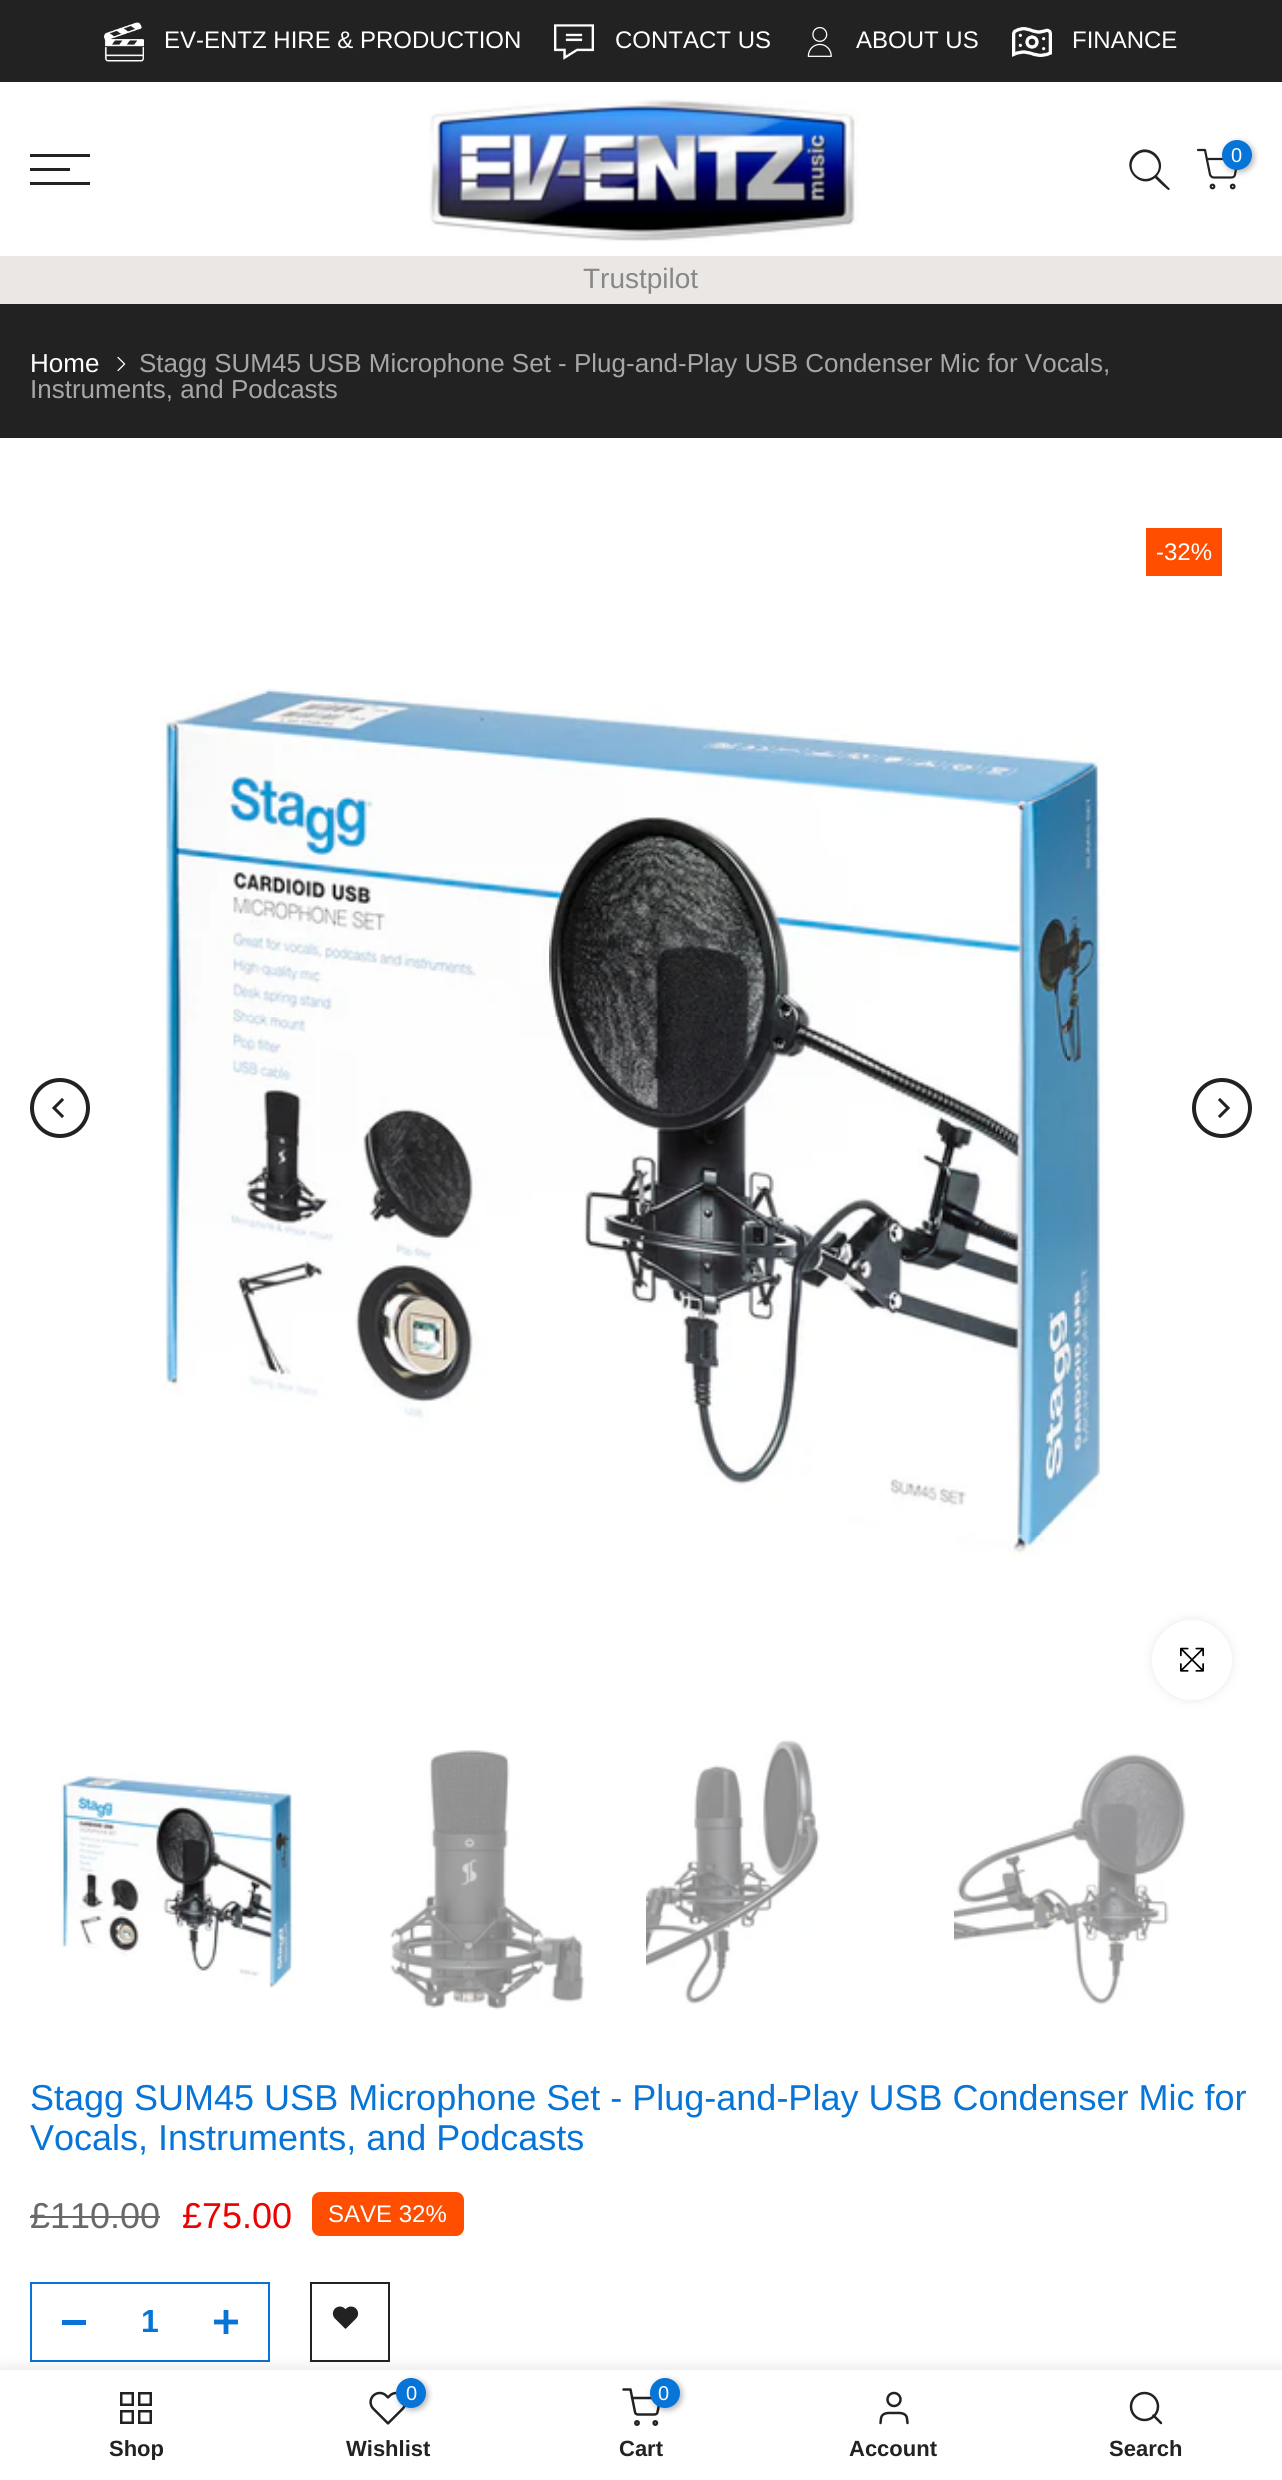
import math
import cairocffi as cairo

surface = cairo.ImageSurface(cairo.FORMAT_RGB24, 1282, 2480)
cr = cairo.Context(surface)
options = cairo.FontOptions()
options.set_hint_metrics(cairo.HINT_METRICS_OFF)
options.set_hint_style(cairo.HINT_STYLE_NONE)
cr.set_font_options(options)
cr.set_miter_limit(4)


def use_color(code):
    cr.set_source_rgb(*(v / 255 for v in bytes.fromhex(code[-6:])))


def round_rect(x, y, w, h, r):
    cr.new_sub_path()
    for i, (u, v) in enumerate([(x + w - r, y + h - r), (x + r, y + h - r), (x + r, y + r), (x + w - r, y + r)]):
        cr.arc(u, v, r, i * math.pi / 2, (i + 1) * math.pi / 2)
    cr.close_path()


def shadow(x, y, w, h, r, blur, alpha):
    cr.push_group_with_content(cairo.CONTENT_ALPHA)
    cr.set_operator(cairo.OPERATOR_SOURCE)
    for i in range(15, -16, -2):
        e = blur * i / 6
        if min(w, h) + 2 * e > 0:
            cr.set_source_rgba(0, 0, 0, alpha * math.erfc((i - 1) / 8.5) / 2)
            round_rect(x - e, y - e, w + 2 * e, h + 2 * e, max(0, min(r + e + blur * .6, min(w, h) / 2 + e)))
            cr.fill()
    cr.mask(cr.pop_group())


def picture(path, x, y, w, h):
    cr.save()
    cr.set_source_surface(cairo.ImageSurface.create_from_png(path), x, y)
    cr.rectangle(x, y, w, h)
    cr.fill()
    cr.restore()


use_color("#ffffff")
cr.paint()
use_color("#222222")
cr.rectangle(0, 0, 1282, 82)
cr.fill()
picture("img1.png", 104, 22, 40, 40)
cr.select_font_face("Liberation Sans")
cr.set_font_size(24)
use_color("#ffffff")
cr.move_to(164, 48)
cr.show_text("EV-ENTZ HIRE & PRODUCTION")
picture("img2.png", 554, 24, 40, 36)
cr.move_to(615, 48)
cr.show_text("CONTACT US")
picture("img3.png", 807, 27, 25, 30)
cr.move_to(856, 48)
cr.show_text("ABOUT US")
picture("img4.png", 1012, 27, 40, 30)
cr.move_to(1072, 48)
cr.show_text("FINANCE")
use_color("#222222")
cr.rectangle(30, 154, 60, 3)
cr.fill()
cr.rectangle(30, 168, 40, 3)
cr.fill()
cr.rectangle(30, 182, 60, 3)
cr.fill()
picture("img5.png", 428, 99, 431, 143)
cr.set_fill_rule(cairo.FILL_RULE_EVEN_ODD)
cr.new_path()
cr.move_to(1155, 175)
cr.curve_to(1142, 187, 1123, 169, 1136, 156)
cr.curve_to(1148, 144, 1167, 163, 1155, 175)
cr.close_path()
cr.move_to(1155, 178)
cr.curve_to(1140, 190, 1120, 168, 1134, 154)
cr.curve_to(1149, 140, 1170, 161, 1157, 176)
cr.line_to(1170, 189)
cr.line_to(1169, 190)
cr.curve_to(1168, 191, 1157, 180, 1155, 178)
cr.close_path()
cr.fill()
cr.new_path()
cr.move_to(1198, 150)
cr.line_to(1205, 150)
cr.line_to(1210, 174.5)
cr.curve_to(1210.5, 176, 1212, 177.5, 1213.5, 177.5)
cr.line_to(1231.5, 177.5)
cr.curve_to(1233.5, 177.5, 1235, 176, 1235, 174.5)
cr.line_to(1238, 159)
cr.line_to(1207, 159)
cr.set_line_width(2.2)
cr.set_line_cap(cairo.LINE_CAP_ROUND)
cr.set_line_join(cairo.LINE_JOIN_ROUND)
cr.stroke()
use_color("#000000")
shadow(1224, 142, 30, 30, 15, 3, 0.3)
use_color("#0774d7")
cr.arc(1237, 155, 15, 0, 2 * math.pi)
cr.fill()
cr.set_font_size(20)
use_color("#ffffff")
cr.move_to(1231, 162)
cr.show_text("0")
cr.new_path()
cr.arc(1212.5, 186.5, 1.8, 0, 2 * math.pi)
use_color("#222222")
cr.set_line_cap(cairo.LINE_CAP_BUTT)
cr.set_line_join(cairo.LINE_JOIN_MITER)
cr.stroke()
cr.arc(1232.7, 186.5, 1.8, 0, 2 * math.pi)
cr.stroke()
use_color("#eae7e4")
cr.rectangle(0, 256, 1282, 48)
cr.fill()
cr.set_font_size(28)
use_color("#878787")
cr.move_to(583, 288)
cr.show_text("Trustpilot")
use_color("#222222")
cr.rectangle(0, 304, 1282, 134)
cr.fill()
cr.set_font_size(26)
use_color("#ffffff")
cr.move_to(30, 372)
cr.show_text("Home")
picture("img6.png", 117, 356, 9, 16)
use_color("#a7a7a7")
cr.move_to(139, 372)
cr.show_text("Stagg SUM45 USB Microphone Set - Plug-and-Play USB Condenser Mic for Vocals,")
cr.move_to(30, 398)
cr.show_text("Instruments, and Podcasts")
use_color("#ff4e00")
cr.rectangle(1146, 528, 76, 48)
cr.fill()
cr.set_font_size(24)
use_color("#ffffff")
cr.move_to(1156, 560)
cr.show_text("-32%")
cr.new_path()
cr.arc(60, 1108, 28, 0, 2 * math.pi)
use_color("#222222")
cr.set_line_width(4)
cr.stroke()
picture("img7.png", 52, 1098, 12, 20)
picture("img8.png", 161, 687, 944, 870)
cr.arc(1222, 1108, 28, 0, 2 * math.pi)
cr.stroke()
picture("img9.png", 1218, 1098, 12, 20)
use_color("#000000")
shadow(1152, 1620, 80, 80, 40, 5, 0.09)
use_color("#ffffff")
cr.arc(1192, 1660, 40, 0, 2 * math.pi)
cr.fill()
picture("img10.png", 1180, 1647, 24, 25)
picture("img11.png", 59, 1774, 237, 214)
picture("img12.png", 389, 1750, 196, 260)
picture("img13.png", 646, 1739, 174, 266)
picture("img14.png", 954, 1753, 232, 252)
cr.set_font_size(36)
use_color("#0774d7")
cr.move_to(30, 2110)
cr.show_text("Stagg SUM45 USB Microphone Set - Plug-and-Play USB Condenser Mic for")
cr.move_to(30, 2150)
cr.show_text("Vocals, Instruments, and Podcasts")
use_color("#696969")
cr.move_to(30, 2228)
cr.show_text("£110.00")
cr.rectangle(30, 2216, 130, 2)
cr.fill()
use_color("#ec0101")
cr.move_to(182, 2228)
cr.show_text("£75.00")
use_color("#ff4e00")
round_rect(312, 2192, 152, 44, 8)
cr.fill()
cr.set_font_size(24)
use_color("#ffffff")
cr.move_to(328, 2222)
cr.show_text("SAVE 32%")
cr.rectangle(31, 2283, 238, 78)
use_color("#0774d7")
cr.set_line_width(2)
cr.stroke()
cr.rectangle(62, 2320, 24, 5)
cr.fill()
cr.select_font_face("Liberation Sans", cairo.FONT_SLANT_NORMAL, cairo.FONT_WEIGHT_BOLD)
cr.set_font_size(32)
cr.move_to(141, 2332)
cr.show_text("1")
picture("img15.png", 214, 2310, 24, 24)
cr.rectangle(311, 2283, 78, 78)
use_color("#222222")
cr.stroke()
picture("img16.png", 332, 2306, 27, 23)
use_color("#000000")
shadow(0, 2370, 1282, 110, 0, 9, 0.12)
use_color("#ffffff")
cr.rectangle(0, 2370, 1282, 110)
cr.fill()
cr.rectangle(121.25, 2393.25, 11.5, 11.5)
use_color("#222222")
cr.set_line_width(2.5)
cr.stroke()
cr.rectangle(139.25, 2393.25, 11.5, 11.5)
cr.stroke()
cr.rectangle(121.25, 2411.25, 11.5, 11.5)
cr.stroke()
cr.rectangle(139.25, 2411.25, 11.5, 11.5)
cr.stroke()
cr.save()
cr.set_fill_rule(cairo.FILL_RULE_WINDING)
cr.rectangle(30, 2438, 212, 22)
cr.clip()
cr.set_font_size(22)
cr.move_to(109, 2456)
cr.show_text("Shop")
cr.restore()
picture("img17.png", 369, 2391, 37, 34)
use_color("#000000")
shadow(398, 2380, 30, 30, 15, 3, 0.3)
use_color("#0774d7")
cr.arc(411, 2393, 15, 0, 2 * math.pi)
cr.fill()
cr.select_font_face("Liberation Sans")
cr.set_font_size(20)
use_color("#ffffff")
cr.move_to(406, 2400)
cr.show_text("0")
cr.select_font_face("Liberation Sans", cairo.FONT_SLANT_NORMAL, cairo.FONT_WEIGHT_BOLD)
cr.set_font_size(22)
use_color("#222222")
cr.move_to(346, 2456)
cr.show_text("Wishlist")
cr.new_path()
cr.move_to(623.5, 2389.5)
cr.line_to(630.5, 2389.5)
cr.line_to(635, 2412)
cr.curve_to(635, 2413.5, 636.5, 2414.5, 638, 2414.5)
cr.line_to(654.5, 2414.5)
cr.curve_to(656, 2414.5, 657.5, 2413.5, 657.5, 2412)
cr.line_to(660.5, 2398)
cr.line_to(632, 2398)
cr.set_line_cap(cairo.LINE_CAP_ROUND)
cr.set_line_join(cairo.LINE_JOIN_ROUND)
cr.stroke()
use_color("#000000")
shadow(652, 2380, 30, 30, 15, 3, 0.3)
use_color("#0774d7")
cr.arc(665, 2393, 15, 0, 2 * math.pi)
cr.fill()
cr.select_font_face("Liberation Sans")
cr.set_font_size(20)
use_color("#ffffff")
cr.move_to(658, 2400)
cr.show_text("0")
cr.new_path()
cr.arc(637, 2423, 1.7, 0, 2 * math.pi)
use_color("#222222")
cr.set_line_cap(cairo.LINE_CAP_BUTT)
cr.set_line_join(cairo.LINE_JOIN_MITER)
cr.stroke()
cr.arc(655.3, 2423, 1.7, 0, 2 * math.pi)
cr.stroke()
cr.select_font_face("Liberation Sans", cairo.FONT_SLANT_NORMAL, cairo.FONT_WEIGHT_BOLD)
cr.set_font_size(22)
cr.move_to(619, 2456)
cr.show_text("Cart")
cr.new_path()
cr.arc(894, 2399.5, 6.5, 0, 2 * math.pi)
cr.stroke()
cr.new_path()
cr.move_to(907.5, 2423)
cr.line_to(907, 2418.5)
cr.curve_to(906, 2412, 899, 2413, 894, 2413)
cr.curve_to(889, 2413, 882, 2412, 881, 2418.5)
cr.line_to(880.5, 2423)
cr.set_line_cap(cairo.LINE_CAP_ROUND)
cr.set_line_join(cairo.LINE_JOIN_ROUND)
cr.stroke()
cr.move_to(849, 2456)
cr.show_text("Account")
cr.new_path()
cr.arc(1144.5, 2406.5, 13.5, 0, 2 * math.pi)
cr.set_line_cap(cairo.LINE_CAP_BUTT)
cr.set_line_join(cairo.LINE_JOIN_MITER)
cr.stroke()
cr.new_path()
cr.move_to(1161, 2423)
cr.line_to(1153.5, 2415.5)
cr.set_line_cap(cairo.LINE_CAP_ROUND)
cr.set_line_join(cairo.LINE_JOIN_ROUND)
cr.stroke()
cr.move_to(1109, 2456)
cr.show_text("Search")
surface.write_to_png("result.png")
